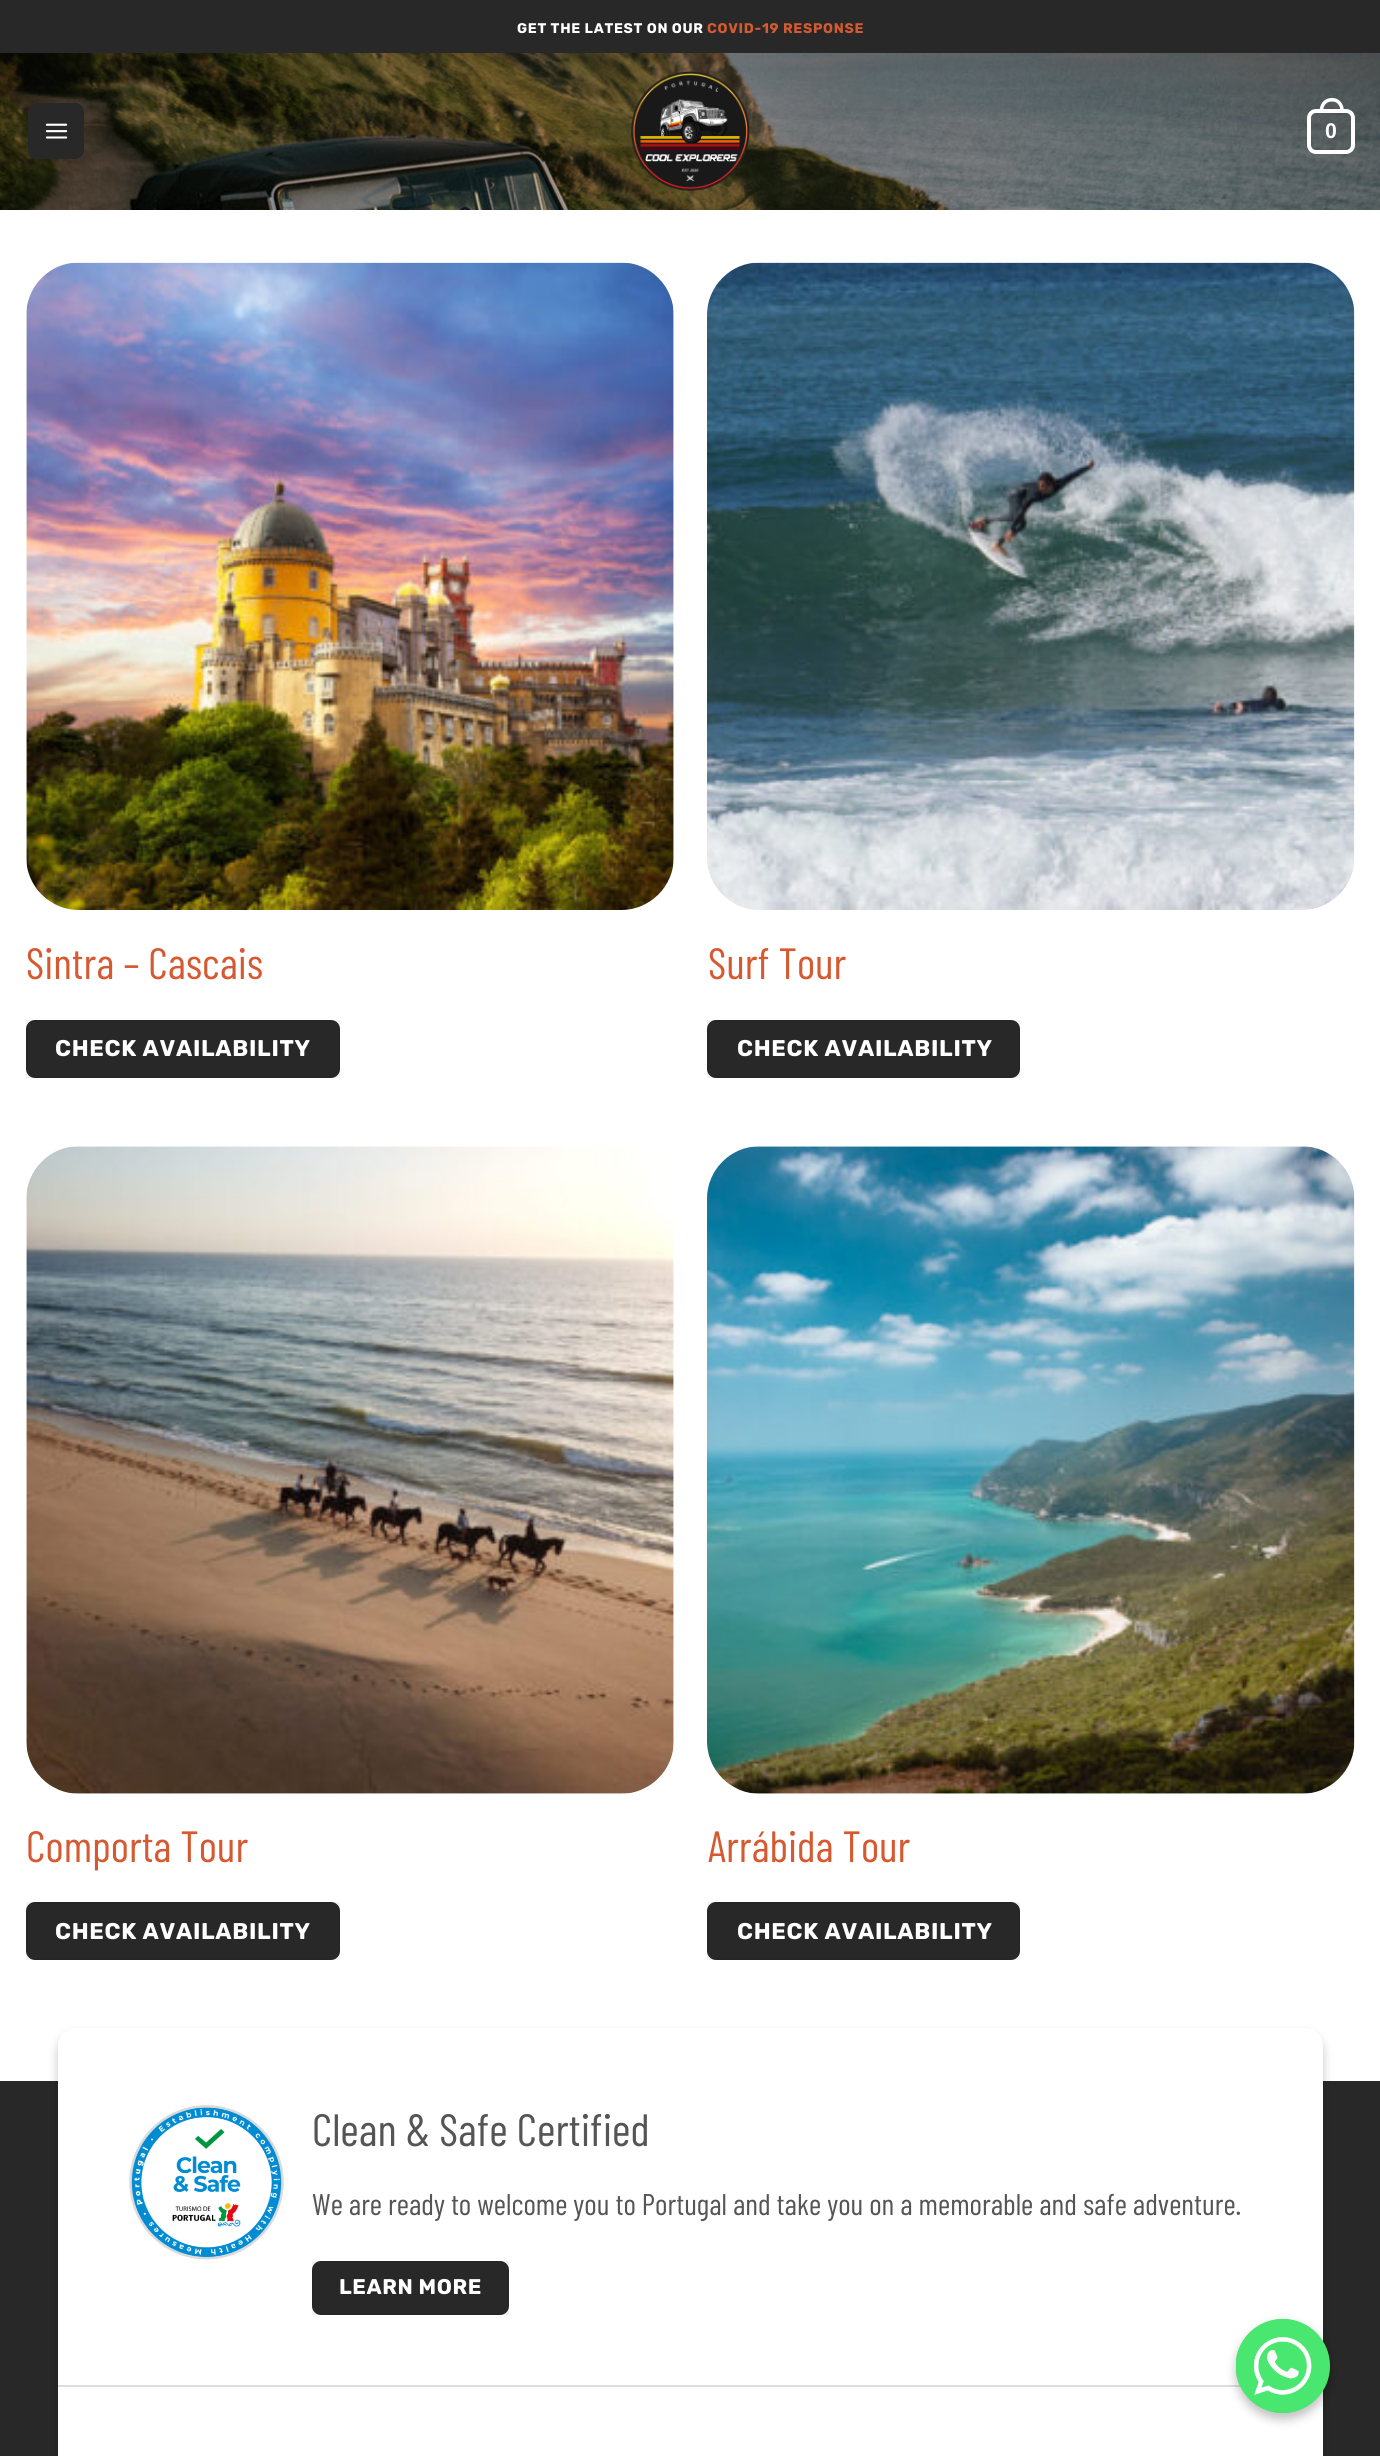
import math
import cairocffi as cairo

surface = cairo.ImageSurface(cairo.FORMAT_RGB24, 1380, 2456)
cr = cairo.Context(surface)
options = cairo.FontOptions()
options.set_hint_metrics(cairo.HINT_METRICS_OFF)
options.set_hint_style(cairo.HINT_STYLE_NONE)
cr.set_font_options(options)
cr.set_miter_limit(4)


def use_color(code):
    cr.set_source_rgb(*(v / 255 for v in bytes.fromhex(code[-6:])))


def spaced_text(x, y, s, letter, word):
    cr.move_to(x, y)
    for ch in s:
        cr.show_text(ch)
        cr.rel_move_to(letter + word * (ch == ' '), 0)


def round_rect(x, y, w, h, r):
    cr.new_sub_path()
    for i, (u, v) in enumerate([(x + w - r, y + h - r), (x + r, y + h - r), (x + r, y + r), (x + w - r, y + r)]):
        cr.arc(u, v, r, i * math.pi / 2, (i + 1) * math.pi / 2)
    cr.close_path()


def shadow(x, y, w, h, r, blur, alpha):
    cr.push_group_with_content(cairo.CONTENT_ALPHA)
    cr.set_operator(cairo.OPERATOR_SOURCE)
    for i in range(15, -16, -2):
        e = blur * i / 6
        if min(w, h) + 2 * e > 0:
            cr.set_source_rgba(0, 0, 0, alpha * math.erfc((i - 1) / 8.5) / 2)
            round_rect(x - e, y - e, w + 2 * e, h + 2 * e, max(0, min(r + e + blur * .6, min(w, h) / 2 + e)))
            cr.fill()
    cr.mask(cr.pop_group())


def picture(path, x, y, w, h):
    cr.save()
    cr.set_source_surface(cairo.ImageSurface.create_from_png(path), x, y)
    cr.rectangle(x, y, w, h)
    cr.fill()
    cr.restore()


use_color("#ffffff")
cr.paint()
use_color("#282828")
cr.rectangle(0, 0, 1380, 53)
cr.fill()
cr.select_font_face("Rubik", cairo.FONT_SLANT_NORMAL, cairo.FONT_WEIGHT_BOLD)
cr.set_font_size(14)
use_color("#ffffff")
spaced_text(517, 33, "GET THE LATEST ON OUR", 0.7, 0)
use_color("#d65a31")
spaced_text(707, 33, "COVID-19 RESPONSE", 0.7, 0)
picture("img3.png", 0, 53, 1380, 157)
use_color("#282828")
round_rect(28, 103, 56, 56, 9)
cr.fill()
picture("img1.png", 45, 123, 23, 16)
picture("img2.png", 631, 71, 119, 120)
round_rect(1309, 111, 44, 41, 7)
use_color("#ffffff")
cr.set_line_width(4)
cr.stroke()
cr.set_fill_rule(cairo.FILL_RULE_EVEN_ODD)
cr.new_path()
cr.move_to(1332, 98)
cr.curve_to(1340, 98, 1344, 104.5, 1344, 112)
cr.line_to(1319.5, 112)
cr.curve_to(1319.5, 104.5, 1323.5, 98, 1332, 98)
cr.close_path()
cr.move_to(1332, 101.5)
cr.curve_to(1338, 101.5, 1340.5, 106.5, 1340.5, 112)
cr.line_to(1323, 112)
cr.curve_to(1323, 106.5, 1325.5, 101.5, 1332, 101.5)
cr.close_path()
cr.fill()
cr.select_font_face("Liberation Sans", cairo.FONT_SLANT_NORMAL, cairo.FONT_WEIGHT_BOLD)
cr.set_font_size(21.25)
cr.move_to(1325, 138)
cr.show_text("0")
picture("img4.png", 26, 262, 648, 648)
cr.select_font_face("Barlow Condensed")
cr.set_font_size(43.75)
use_color("#d65a31")
cr.move_to(26, 979)
cr.show_text("Sintra – Cascais")
use_color("#282828")
round_rect(26, 1020, 314, 58, 9)
cr.fill()
cr.rectangle(27, 1021, 312, 56)
cr.set_source_rgba(0, 0, 0, 0.05)
cr.set_line_width(2)
cr.stroke()
cr.select_font_face("Rubik", cairo.FONT_SLANT_NORMAL, cairo.FONT_WEIGHT_BOLD)
cr.set_font_size(22.75)
use_color("#ffffff")
spaced_text(55, 1056, "CHECK AVAILABILITY", 0.7, 0)
picture("img5.png", 707, 262, 648, 648)
cr.select_font_face("Barlow Condensed")
cr.set_font_size(43.75)
use_color("#d65a31")
cr.move_to(708, 979)
cr.show_text("Surf Tour")
use_color("#282828")
round_rect(707, 1020, 313, 58, 9)
cr.fill()
cr.rectangle(708, 1021, 311, 56)
cr.set_source_rgba(0, 0, 0, 0.05)
cr.stroke()
cr.select_font_face("Rubik", cairo.FONT_SLANT_NORMAL, cairo.FONT_WEIGHT_BOLD)
cr.set_font_size(22.75)
use_color("#ffffff")
spaced_text(737, 1056, "CHECK AVAILABILITY", 0.7, 0)
picture("img6.png", 26, 1146, 648, 648)
cr.select_font_face("Barlow Condensed")
cr.set_font_size(43.75)
use_color("#d65a31")
cr.move_to(26, 1862)
cr.show_text("Comporta Tour")
use_color("#282828")
round_rect(26, 1902, 314, 58, 9)
cr.fill()
cr.rectangle(27, 1903, 312, 56)
cr.set_source_rgba(0, 0, 0, 0.05)
cr.stroke()
cr.select_font_face("Rubik", cairo.FONT_SLANT_NORMAL, cairo.FONT_WEIGHT_BOLD)
cr.set_font_size(22.75)
use_color("#ffffff")
spaced_text(55, 1939, "CHECK AVAILABILITY", 0.7, 0)
picture("img7.png", 707, 1146, 648, 648)
cr.select_font_face("Barlow Condensed")
cr.set_font_size(43.75)
use_color("#d65a31")
cr.move_to(708, 1862)
cr.show_text("Arrábida Tour")
use_color("#282828")
round_rect(707, 1902, 313, 58, 9)
cr.fill()
cr.rectangle(708, 1903, 311, 56)
cr.set_source_rgba(0, 0, 0, 0.05)
cr.stroke()
cr.select_font_face("Rubik", cairo.FONT_SLANT_NORMAL, cairo.FONT_WEIGHT_BOLD)
cr.set_font_size(22.75)
use_color("#ffffff")
spaced_text(737, 1939, "CHECK AVAILABILITY", 0.7, 0)
use_color("#282828")
cr.rectangle(0, 2081, 1380, 375)
cr.fill()
use_color("#000000")
shadow(58, 2034, 1265, 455, 18, 5, 0.23)
use_color("#ffffff")
round_rect(58, 2028, 1265, 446, 18)
cr.fill()
picture("img8.png", 129, 2105, 155, 155)
cr.select_font_face("Barlow Condensed")
cr.set_font_size(45.25)
use_color("#555555")
cr.move_to(312, 2146)
cr.show_text("Clean & Safe Certified")
cr.set_font_size(29.9)
cr.move_to(312, 2215)
cr.show_text("We are ready to welcome you to Portugal and take you on a memorable and safe adventure.")
use_color("#282828")
round_rect(312, 2261, 197, 54, 9)
cr.fill()
cr.rectangle(313, 2262, 195, 52)
cr.set_source_rgba(0, 0, 0, 0.05)
cr.stroke()
cr.select_font_face("Rubik", cairo.FONT_SLANT_NORMAL, cairo.FONT_WEIGHT_BOLD)
cr.set_font_size(21.25)
use_color("#ffffff")
spaced_text(339, 2294, "LEARN MORE", 0.6, 0)
use_color("#dddddd")
cr.rectangle(58, 2385, 1183, 2)
cr.fill()
use_color("#000000")
shadow(1236, 2324, 94, 95, 47, 5, 0.25)
use_color("#49e670")
cr.arc(1283, 2366, 47, 0, 2 * math.pi)
cr.fill()
picture("img9.png", 1236, 2319, 94, 94)
surface.write_to_png("result.png")
